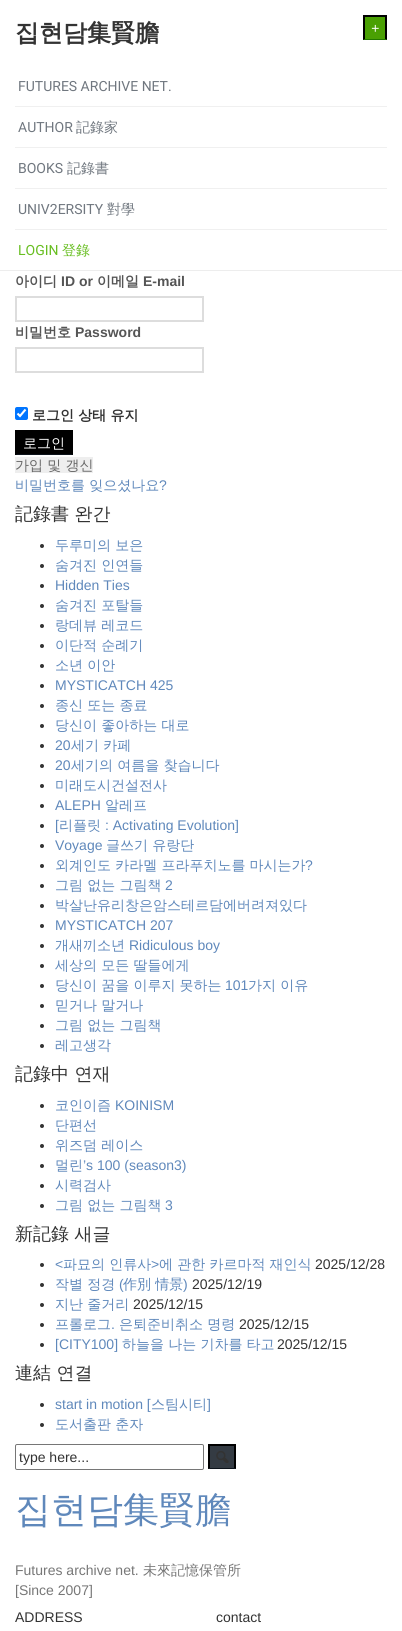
import math
import cairocffi as cairo

surface = cairo.ImageSurface(cairo.FORMAT_RGB24, 402, 1631)
cr = cairo.Context(surface)
options = cairo.FontOptions()
options.set_hint_metrics(cairo.HINT_METRICS_OFF)
options.set_hint_style(cairo.HINT_STYLE_NONE)
cr.set_font_options(options)
cr.set_miter_limit(4)


def use_color(code):
    cr.set_source_rgb(*(v / 255 for v in bytes.fromhex(code[-6:])))


def round_rect(x, y, w, h, r):
    cr.new_sub_path()
    for i, (u, v) in enumerate([(x + w - r, y + h - r), (x + r, y + h - r), (x + r, y + r), (x + w - r, y + r)]):
        cr.arc(u, v, r, i * math.pi / 2, (i + 1) * math.pi / 2)
    cr.close_path()


def picture(path, x, y, w, h):
    cr.save()
    cr.set_source_surface(cairo.ImageSurface.create_from_png(path), x, y)
    cr.rectangle(x, y, w, h)
    cr.fill()
    cr.restore()


use_color("#ffffff")
cr.paint()
use_color("#ededed")
cr.rectangle(0, 270, 402, 1)
cr.fill()
cr.select_font_face("WenQuanYi Zen Hei", cairo.FONT_SLANT_NORMAL, cairo.FONT_WEIGHT_BOLD)
cr.set_font_size(24)
use_color("#333333")
cr.move_to(15, 41)
cr.show_text("집현담集賢膽")
use_color("#4aa003")
cr.rectangle(363, 17, 24, 23)
cr.fill()
use_color("#000000")
cr.rectangle(363, 15, 24, 2)
cr.fill()
cr.new_path()
cr.move_to(387, 15)
cr.line_to(387, 40)
cr.line_to(385, 39)
cr.line_to(385, 17)
cr.close_path()
cr.fill()
use_color("#227800")
cr.new_path()
cr.move_to(387, 40)
cr.line_to(363, 40)
cr.line_to(365, 39)
cr.line_to(385, 39)
cr.close_path()
cr.fill()
use_color("#000000")
cr.new_path()
cr.move_to(363, 40)
cr.line_to(363, 15)
cr.line_to(365, 17)
cr.line_to(365, 39)
cr.close_path()
cr.fill()
cr.select_font_face("Liberation Sans", cairo.FONT_SLANT_ITALIC)
cr.set_font_size(14)
use_color("#ffffff")
cr.move_to(371, 33)
cr.show_text("+")
use_color("#f0f0f0")
cr.rectangle(15, 106, 372, 1)
cr.fill()
cr.select_font_face("Roboto")
use_color("#70777f")
cr.move_to(18, 91)
cr.show_text("FUTURES ARCHIVE NET.")
use_color("#f0f0f0")
cr.rectangle(15, 147, 372, 1)
cr.fill()
use_color("#70777f")
cr.move_to(18, 132)
cr.show_text("AUTHOR")
cr.select_font_face("WenQuanYi Zen Hei Medium")
cr.move_to(76, 132)
cr.show_text("記錄家")
use_color("#f0f0f0")
cr.rectangle(15, 188, 372, 1)
cr.fill()
cr.select_font_face("Roboto")
use_color("#70777f")
cr.move_to(18, 173)
cr.show_text("BOOKS")
cr.select_font_face("WenQuanYi Zen Hei Medium")
cr.move_to(67, 173)
cr.show_text("記錄書")
use_color("#f0f0f0")
cr.rectangle(15, 229, 372, 1)
cr.fill()
cr.select_font_face("Roboto")
use_color("#70777f")
cr.move_to(18, 214)
cr.show_text("UNIV2ERSITY")
cr.select_font_face("WenQuanYi Zen Hei Medium")
cr.move_to(107, 214)
cr.show_text("對學")
cr.select_font_face("Roboto")
use_color("#68be21")
cr.move_to(18, 255)
cr.show_text("LOGIN")
cr.select_font_face("WenQuanYi Zen Hei Medium")
cr.move_to(62, 255)
cr.show_text("登錄")
cr.select_font_face("WenQuanYi Zen Hei", cairo.FONT_SLANT_NORMAL, cairo.FONT_WEIGHT_BOLD)
use_color("#555555")
cr.move_to(15, 286)
cr.show_text("아이디")
cr.select_font_face("Liberation Sans", cairo.FONT_SLANT_NORMAL, cairo.FONT_WEIGHT_BOLD)
cr.move_to(61, 286)
cr.show_text("ID or")
cr.select_font_face("WenQuanYi Zen Hei", cairo.FONT_SLANT_NORMAL, cairo.FONT_WEIGHT_BOLD)
cr.move_to(97, 286)
cr.show_text("이메일")
cr.select_font_face("Liberation Sans", cairo.FONT_SLANT_NORMAL, cairo.FONT_WEIGHT_BOLD)
cr.move_to(143, 286)
cr.show_text("E-mail")
cr.rectangle(16, 297, 187, 24)
use_color("#dddddd")
cr.stroke()
cr.select_font_face("WenQuanYi Zen Hei", cairo.FONT_SLANT_NORMAL, cairo.FONT_WEIGHT_BOLD)
use_color("#555555")
cr.move_to(15, 337)
cr.show_text("비밀번호")
cr.select_font_face("Liberation Sans", cairo.FONT_SLANT_NORMAL, cairo.FONT_WEIGHT_BOLD)
cr.move_to(75, 337)
cr.show_text("Password")
cr.rectangle(16, 348, 187, 24)
use_color("#dddddd")
cr.stroke()
use_color("#0075ff")
round_rect(15, 407, 13, 13, 2)
cr.fill()
cr.new_path()
cr.move_to(17.5, 413.5)
cr.line_to(20, 416)
cr.line_to(25.5, 409.5)
use_color("#ffffff")
cr.set_line_width(2.1)
cr.stroke()
cr.select_font_face("WenQuanYi Zen Hei", cairo.FONT_SLANT_NORMAL, cairo.FONT_WEIGHT_BOLD)
use_color("#333333")
cr.move_to(32, 420)
cr.show_text("로그인 상태 유지")
use_color("#000000")
cr.rectangle(15, 430, 58, 25)
cr.fill()
use_color("#0c131b")
cr.new_path()
cr.move_to(73, 455)
cr.line_to(15, 455)
cr.line_to(17, 454)
cr.line_to(71, 454)
cr.close_path()
cr.fill()
use_color("#000000")
cr.new_path()
cr.move_to(15, 455)
cr.line_to(15, 430)
cr.line_to(17, 432)
cr.line_to(17, 454)
cr.close_path()
cr.fill()
cr.select_font_face("WenQuanYi Zen Hei Medium")
use_color("#ffffff")
cr.move_to(23, 448)
cr.show_text("로그인")
use_color("#eeeeee")
cr.rectangle(15, 457, 78, 16)
cr.fill()
use_color("#666666")
cr.move_to(15, 470)
cr.show_text("가입 및 갱신")
use_color("#5f88bb")
cr.move_to(15, 490)
cr.show_text("비밀번호를 잊으셨나요")
cr.select_font_face("Liberation Sans")
cr.move_to(159, 490)
cr.show_text("?")
cr.select_font_face("WenQuanYi Zen Hei Medium")
cr.set_font_size(18)
use_color("#333333")
cr.move_to(15, 520)
cr.show_text("記錄書 완간")
cr.new_path()
cr.arc(42, 546, 2, 0, 2 * math.pi)
cr.fill()
cr.set_font_size(14)
use_color("#5f88bb")
cr.move_to(55, 550)
cr.show_text("두루미의 보은")
use_color("#333333")
cr.new_path()
cr.arc(42, 566, 2, 0, 2 * math.pi)
cr.fill()
use_color("#5f88bb")
cr.move_to(55, 570)
cr.show_text("숨겨진 인연들")
use_color("#333333")
cr.new_path()
cr.arc(42, 586, 2, 0, 2 * math.pi)
cr.fill()
cr.select_font_face("Liberation Sans")
use_color("#5f88bb")
cr.move_to(55, 590)
cr.show_text("Hidden Ties")
use_color("#333333")
cr.new_path()
cr.arc(42, 606, 2, 0, 2 * math.pi)
cr.fill()
cr.select_font_face("WenQuanYi Zen Hei Medium")
use_color("#5f88bb")
cr.move_to(55, 610)
cr.show_text("숨겨진 포탈들")
use_color("#333333")
cr.new_path()
cr.arc(42, 626, 2, 0, 2 * math.pi)
cr.fill()
use_color("#5f88bb")
cr.move_to(55, 630)
cr.show_text("랑데뷰 레코드")
use_color("#333333")
cr.new_path()
cr.arc(42, 646, 2, 0, 2 * math.pi)
cr.fill()
use_color("#5f88bb")
cr.move_to(55, 650)
cr.show_text("이단적 순례기")
use_color("#333333")
cr.new_path()
cr.arc(42, 666, 2, 0, 2 * math.pi)
cr.fill()
use_color("#5f88bb")
cr.move_to(55, 670)
cr.show_text("소년 이안")
use_color("#333333")
cr.new_path()
cr.arc(42, 686, 2, 0, 2 * math.pi)
cr.fill()
cr.select_font_face("Liberation Sans")
use_color("#5f88bb")
cr.move_to(55, 690)
cr.show_text("MYSTICATCH 425")
use_color("#333333")
cr.new_path()
cr.arc(42, 706, 2, 0, 2 * math.pi)
cr.fill()
cr.select_font_face("WenQuanYi Zen Hei Medium")
use_color("#5f88bb")
cr.move_to(55, 710)
cr.show_text("종신 또는 종료")
use_color("#333333")
cr.new_path()
cr.arc(42, 726, 2, 0, 2 * math.pi)
cr.fill()
use_color("#5f88bb")
cr.move_to(55, 730)
cr.show_text("당신이 좋아하는 대로")
use_color("#333333")
cr.new_path()
cr.arc(42, 746, 2, 0, 2 * math.pi)
cr.fill()
cr.select_font_face("Liberation Sans")
use_color("#5f88bb")
cr.move_to(55, 750)
cr.show_text("20")
cr.select_font_face("WenQuanYi Zen Hei Medium")
cr.move_to(71, 750)
cr.show_text("세기 카페")
use_color("#333333")
cr.new_path()
cr.arc(42, 766, 2, 0, 2 * math.pi)
cr.fill()
cr.select_font_face("Liberation Sans")
use_color("#5f88bb")
cr.move_to(55, 770)
cr.show_text("20")
cr.select_font_face("WenQuanYi Zen Hei Medium")
cr.move_to(71, 770)
cr.show_text("세기의 여름을 찾습니다")
use_color("#333333")
cr.new_path()
cr.arc(42, 786, 2, 0, 2 * math.pi)
cr.fill()
use_color("#5f88bb")
cr.move_to(55, 790)
cr.show_text("미래도시건설전사")
use_color("#333333")
cr.new_path()
cr.arc(42, 806, 2, 0, 2 * math.pi)
cr.fill()
cr.select_font_face("Liberation Sans")
use_color("#5f88bb")
cr.move_to(55, 810)
cr.show_text("ALEPH")
cr.select_font_face("WenQuanYi Zen Hei Medium")
cr.move_to(105, 810)
cr.show_text("알레프")
use_color("#333333")
cr.new_path()
cr.arc(42, 826, 2, 0, 2 * math.pi)
cr.fill()
cr.select_font_face("Liberation Sans")
use_color("#5f88bb")
cr.move_to(55, 830)
cr.show_text("[")
cr.select_font_face("WenQuanYi Zen Hei Medium")
cr.move_to(59, 830)
cr.show_text("리플릿")
cr.select_font_face("Liberation Sans")
cr.move_to(105, 830)
cr.show_text(": Activating Evolution]")
use_color("#333333")
cr.new_path()
cr.arc(42, 846, 2, 0, 2 * math.pi)
cr.fill()
use_color("#5f88bb")
cr.move_to(55, 850)
cr.show_text("Voyage")
cr.select_font_face("WenQuanYi Zen Hei Medium")
cr.move_to(106, 850)
cr.show_text("글쓰기 유랑단")
use_color("#333333")
cr.new_path()
cr.arc(42, 866, 2, 0, 2 * math.pi)
cr.fill()
use_color("#5f88bb")
cr.move_to(55, 870)
cr.show_text("외계인도 카라멜 프라푸치노를 마시는가")
cr.select_font_face("Liberation Sans")
cr.move_to(305, 870)
cr.show_text("?")
use_color("#333333")
cr.new_path()
cr.arc(42, 886, 2, 0, 2 * math.pi)
cr.fill()
cr.select_font_face("WenQuanYi Zen Hei Medium")
use_color("#5f88bb")
cr.move_to(55, 890)
cr.show_text("그림 없는 그림책")
cr.select_font_face("Liberation Sans")
cr.move_to(165, 890)
cr.show_text("2")
use_color("#333333")
cr.new_path()
cr.arc(42, 906, 2, 0, 2 * math.pi)
cr.fill()
cr.select_font_face("WenQuanYi Zen Hei Medium")
use_color("#5f88bb")
cr.move_to(55, 910)
cr.show_text("박살난유리창은암스테르담에버려져있다")
use_color("#333333")
cr.new_path()
cr.arc(42, 926, 2, 0, 2 * math.pi)
cr.fill()
cr.select_font_face("Liberation Sans")
use_color("#5f88bb")
cr.move_to(55, 930)
cr.show_text("MYSTICATCH 207")
use_color("#333333")
cr.new_path()
cr.arc(42, 946, 2, 0, 2 * math.pi)
cr.fill()
cr.select_font_face("WenQuanYi Zen Hei Medium")
use_color("#5f88bb")
cr.move_to(55, 950)
cr.show_text("개새끼소년")
cr.select_font_face("Liberation Sans")
cr.move_to(129, 950)
cr.show_text("Ridiculous boy")
use_color("#333333")
cr.new_path()
cr.arc(42, 966, 2, 0, 2 * math.pi)
cr.fill()
cr.select_font_face("WenQuanYi Zen Hei Medium")
use_color("#5f88bb")
cr.move_to(55, 970)
cr.show_text("세상의 모든 딸들에게")
use_color("#333333")
cr.new_path()
cr.arc(42, 986, 2, 0, 2 * math.pi)
cr.fill()
use_color("#5f88bb")
cr.move_to(55, 990)
cr.show_text("당신이 꿈을 이루지 못하는")
cr.select_font_face("Liberation Sans")
cr.move_to(225, 990)
cr.show_text("101")
cr.select_font_face("WenQuanYi Zen Hei Medium")
cr.move_to(248, 990)
cr.show_text("가지 이유")
use_color("#333333")
cr.new_path()
cr.arc(42, 1006, 2, 0, 2 * math.pi)
cr.fill()
use_color("#5f88bb")
cr.move_to(55, 1010)
cr.show_text("믿거나 말거나")
use_color("#333333")
cr.new_path()
cr.arc(42, 1026, 2, 0, 2 * math.pi)
cr.fill()
use_color("#5f88bb")
cr.move_to(55, 1030)
cr.show_text("그림 없는 그림책")
use_color("#333333")
cr.new_path()
cr.arc(42, 1046, 2, 0, 2 * math.pi)
cr.fill()
use_color("#5f88bb")
cr.move_to(55, 1050)
cr.show_text("레고생각")
cr.set_font_size(18)
use_color("#333333")
cr.move_to(15, 1080)
cr.show_text("記錄中 연재")
cr.new_path()
cr.arc(42, 1106, 2, 0, 2 * math.pi)
cr.fill()
cr.set_font_size(14)
use_color("#5f88bb")
cr.move_to(55, 1110)
cr.show_text("코인이즘")
cr.select_font_face("Liberation Sans")
cr.move_to(115, 1110)
cr.show_text("KOINISM")
use_color("#333333")
cr.new_path()
cr.arc(42, 1126, 2, 0, 2 * math.pi)
cr.fill()
cr.select_font_face("WenQuanYi Zen Hei Medium")
use_color("#5f88bb")
cr.move_to(55, 1130)
cr.show_text("단편선")
use_color("#333333")
cr.new_path()
cr.arc(42, 1146, 2, 0, 2 * math.pi)
cr.fill()
use_color("#5f88bb")
cr.move_to(55, 1150)
cr.show_text("위즈덤 레이스")
use_color("#333333")
cr.new_path()
cr.arc(42, 1166, 2, 0, 2 * math.pi)
cr.fill()
use_color("#5f88bb")
cr.move_to(55, 1170)
cr.show_text("멀린")
cr.select_font_face("Liberation Sans")
cr.move_to(83, 1170)
cr.show_text("’s 100 (season3)")
use_color("#333333")
cr.new_path()
cr.arc(42, 1186, 2, 0, 2 * math.pi)
cr.fill()
cr.select_font_face("WenQuanYi Zen Hei Medium")
use_color("#5f88bb")
cr.move_to(55, 1190)
cr.show_text("시력검사")
use_color("#333333")
cr.new_path()
cr.arc(42, 1206, 2, 0, 2 * math.pi)
cr.fill()
use_color("#5f88bb")
cr.move_to(55, 1210)
cr.show_text("그림 없는 그림책")
cr.select_font_face("Liberation Sans")
cr.move_to(165, 1210)
cr.show_text("3")
cr.select_font_face("WenQuanYi Zen Hei Medium")
cr.set_font_size(18)
use_color("#333333")
cr.move_to(15, 1240)
cr.show_text("新記錄 새글")
cr.new_path()
cr.arc(42, 1265, 2, 0, 2 * math.pi)
cr.fill()
cr.select_font_face("Liberation Sans")
cr.set_font_size(14)
use_color("#5f88bb")
cr.move_to(55, 1269)
cr.show_text("<")
cr.select_font_face("WenQuanYi Zen Hei Medium")
cr.move_to(63, 1269)
cr.show_text("파묘의 인류사")
cr.select_font_face("Liberation Sans")
cr.move_to(151, 1269)
cr.show_text(">")
cr.select_font_face("WenQuanYi Zen Hei Medium")
cr.move_to(159, 1269)
cr.show_text("에 관한 카르마적 재인식")
cr.select_font_face("Liberation Sans")
use_color("#333333")
cr.move_to(315, 1269)
cr.show_text("2025/12/28")
cr.new_path()
cr.arc(42, 1285, 2, 0, 2 * math.pi)
cr.fill()
cr.select_font_face("WenQuanYi Zen Hei Medium")
use_color("#5f88bb")
cr.move_to(55, 1289)
cr.show_text("작별 정경")
cr.select_font_face("Liberation Sans")
cr.move_to(119, 1289)
cr.show_text("(")
cr.select_font_face("WenQuanYi Zen Hei Medium")
cr.move_to(123, 1289)
cr.show_text("作別 情景")
cr.select_font_face("Liberation Sans")
cr.move_to(183, 1289)
cr.show_text(")")
use_color("#333333")
cr.move_to(192, 1289)
cr.show_text("2025/12/19")
cr.new_path()
cr.arc(42, 1305, 2, 0, 2 * math.pi)
cr.fill()
cr.select_font_face("WenQuanYi Zen Hei Medium")
use_color("#5f88bb")
cr.move_to(55, 1309)
cr.show_text("지난 줄거리")
cr.select_font_face("Liberation Sans")
use_color("#333333")
cr.move_to(133, 1309)
cr.show_text("2025/12/15")
cr.new_path()
cr.arc(42, 1325, 2, 0, 2 * math.pi)
cr.fill()
cr.select_font_face("WenQuanYi Zen Hei Medium")
use_color("#5f88bb")
cr.move_to(55, 1329)
cr.show_text("프롤로그")
cr.move_to(119, 1329)
cr.show_text("은퇴준비취소 명령")
cr.select_font_face("Liberation Sans")
use_color("#333333")
cr.move_to(239, 1329)
cr.show_text("2025/12/15")
use_color("#5f88bb")
cr.move_to(111, 1329)
cr.show_text(".")
use_color("#333333")
cr.new_path()
cr.arc(42, 1345, 2, 0, 2 * math.pi)
cr.fill()
use_color("#5f88bb")
cr.move_to(55, 1349)
cr.show_text("[CITY100]")
cr.select_font_face("WenQuanYi Zen Hei Medium")
cr.move_to(122, 1349)
cr.show_text("하늘을 나는 기차를 타고")
cr.select_font_face("Liberation Sans")
use_color("#333333")
cr.move_to(277, 1349)
cr.show_text("2025/12/15")
cr.select_font_face("WenQuanYi Zen Hei Medium")
cr.set_font_size(18)
cr.move_to(15, 1379)
cr.show_text("連結 연결")
cr.new_path()
cr.arc(42, 1405, 2, 0, 2 * math.pi)
cr.fill()
cr.select_font_face("Liberation Sans")
cr.set_font_size(14)
use_color("#5f88bb")
cr.move_to(55, 1409)
cr.show_text("start in motion [")
cr.select_font_face("WenQuanYi Zen Hei Medium")
cr.move_to(151, 1409)
cr.show_text("스팀시티")
cr.select_font_face("Liberation Sans")
cr.move_to(207, 1409)
cr.show_text("]")
use_color("#333333")
cr.new_path()
cr.arc(42, 1425, 2, 0, 2 * math.pi)
cr.fill()
cr.select_font_face("WenQuanYi Zen Hei Medium")
use_color("#5f88bb")
cr.move_to(55, 1429)
cr.show_text("도서출판 춘자")
round_rect(15.5, 1444.5, 188, 25, 1.5)
use_color("#767676")
cr.set_line_width(1)
cr.stroke()
cr.select_font_face("Liberation Sans")
use_color("#333333")
cr.move_to(19, 1462)
cr.show_text("type here...")
use_color("#343b43")
cr.rectangle(208, 1446, 28, 23)
cr.fill()
use_color("#000000")
cr.rectangle(208, 1444, 28, 2)
cr.fill()
cr.new_path()
cr.move_to(236, 1444)
cr.line_to(236, 1469)
cr.line_to(234, 1468)
cr.line_to(234, 1446)
cr.close_path()
cr.fill()
use_color("#0c131b")
cr.new_path()
cr.move_to(236, 1469)
cr.line_to(208, 1469)
cr.line_to(210, 1468)
cr.line_to(234, 1468)
cr.close_path()
cr.fill()
use_color("#000000")
cr.new_path()
cr.move_to(208, 1469)
cr.line_to(208, 1444)
cr.line_to(210, 1446)
cr.line_to(210, 1468)
cr.close_path()
cr.fill()
picture("img1.png", 216, 1451, 13, 12)
cr.select_font_face("WenQuanYi Zen Hei Medium")
cr.set_font_size(36)
use_color("#5f88bb")
cr.move_to(15, 1522)
cr.show_text("집현담集賢膽")
cr.select_font_face("Liberation Sans")
cr.set_font_size(14)
use_color("#777777")
cr.move_to(15, 1575)
cr.show_text("Futures archive net.")
cr.select_font_face("WenQuanYi Zen Hei Medium")
cr.move_to(143, 1575)
cr.show_text("未來記憶保管所")
cr.select_font_face("Liberation Sans")
cr.move_to(15, 1595)
cr.show_text("[Since 2007]")
use_color("#333333")
cr.move_to(15, 1622)
cr.show_text("ADDRESS")
cr.move_to(216, 1622)
cr.show_text("contact")
surface.write_to_png("result.png")
